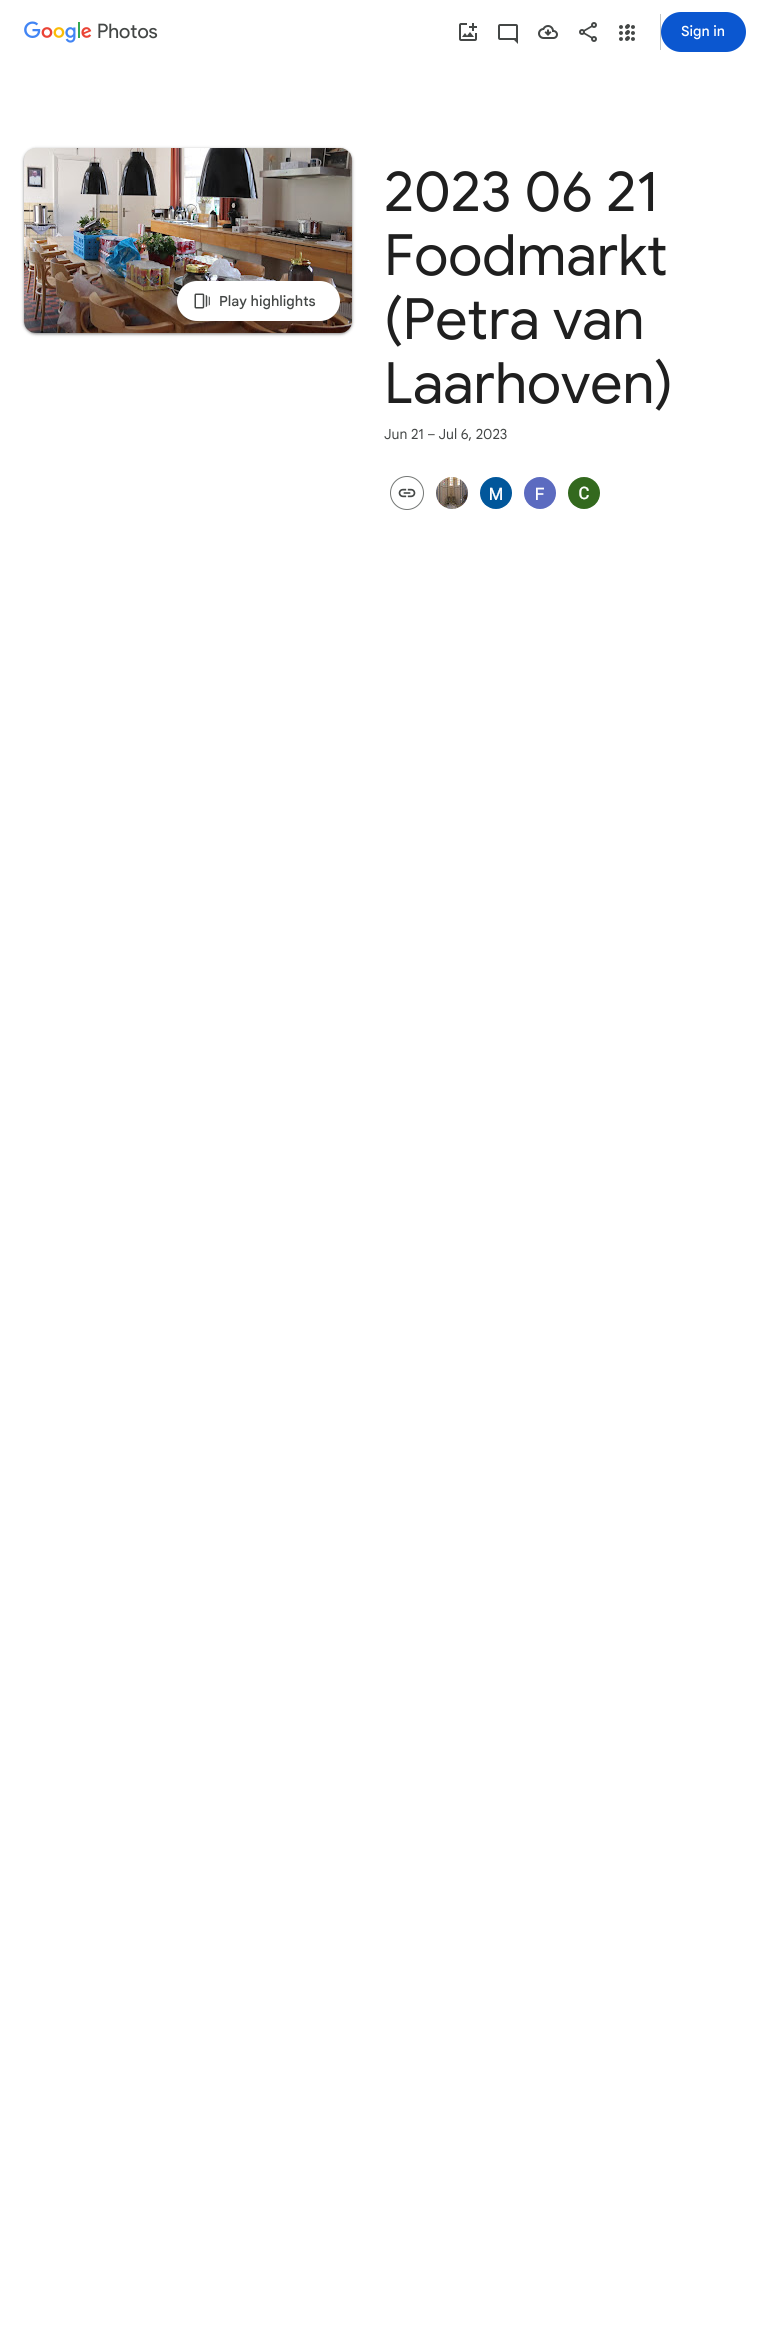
import math
import cairocffi as cairo

surface = cairo.ImageSurface(cairo.FORMAT_RGB24, 782, 2335)
cr = cairo.Context(surface)
options = cairo.FontOptions()
options.set_hint_metrics(cairo.HINT_METRICS_OFF)
options.set_hint_style(cairo.HINT_STYLE_NONE)
cr.set_font_options(options)
cr.set_miter_limit(4)


def use_color(code):
    cr.set_source_rgb(*(v / 255 for v in bytes.fromhex(code[-6:])))


def round_rect(x, y, w, h, r):
    cr.new_sub_path()
    for i, (u, v) in enumerate([(x + w - r, y + h - r), (x + r, y + h - r), (x + r, y + r), (x + w - r, y + r)]):
        cr.arc(u, v, r, i * math.pi / 2, (i + 1) * math.pi / 2)
    cr.close_path()


def shadow(x, y, w, h, r, blur, alpha):
    cr.push_group_with_content(cairo.CONTENT_ALPHA)
    cr.set_operator(cairo.OPERATOR_SOURCE)
    for i in range(15, -16, -2):
        e = blur * i / 6
        if min(w, h) + 2 * e > 0:
            cr.set_source_rgba(0, 0, 0, alpha * math.erfc((i - 1) / 8.5) / 2)
            round_rect(x - e, y - e, w + 2 * e, h + 2 * e, max(0, min(r + e + blur * .6, min(w, h) / 2 + e)))
            cr.fill()
    cr.mask(cr.pop_group())


def picture(path, x, y, w, h):
    cr.save()
    cr.set_source_surface(cairo.ImageSurface.create_from_png(path), x, y)
    cr.rectangle(x, y, w, h)
    cr.fill()
    cr.restore()


use_color("#ffffff")
cr.paint()
picture("img1.png", 24, 21, 68, 22)
cr.select_font_face("Product Sans")
cr.set_font_size(20)
use_color("#444746")
cr.move_to(97, 38)
cr.show_text("Photos")
picture("img2.png", 459, 23, 18, 18)
picture("img3.png", 498, 24, 20, 20)
picture("img4.png", 538, 25, 20, 14)
picture("img5.png", 579, 22, 18, 20)
picture("img6.png", 626, 24, 4, 16)
use_color("#c4c7c5")
cr.rectangle(660, 14, 1, 36)
cr.fill()
use_color("#000000")
shadow(23, 148, 330, 187, 13, 1.5, 0.15)
shadow(24, 149, 328, 185, 12, 1, 0.3)
picture("img7.png", 24, 148, 328, 185)
use_color("#ffffff")
round_rect(177, 281, 163, 40, 20)
cr.fill()
picture("img8.png", 194, 293, 16, 16)
cr.select_font_face("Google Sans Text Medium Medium")
cr.set_font_size(14)
use_color("#444746")
cr.move_to(219, 306)
cr.show_text("Play highlights")
cr.select_font_face("Google Sans")
cr.set_font_size(57)
use_color("#1f1f1f")
cr.move_to(384, 211)
cr.show_text("2023 06 21")
cr.move_to(384, 275)
cr.show_text("Foodmarkt")
cr.move_to(384, 339)
cr.show_text("(Petra van")
cr.move_to(384, 403)
cr.show_text("Laarhoven)")
cr.select_font_face("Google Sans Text")
cr.set_font_size(14)
use_color("#444746")
cr.move_to(384, 439)
cr.show_text("Jun 21 – Jul 6, 2023")
cr.new_path()
cr.arc(407, 493, 16.5, 0, 2 * math.pi)
use_color("#747775")
cr.set_line_width(1)
cr.stroke()
picture("img9.png", 398, 488, 18, 10)
picture("img10.png", 436, 477, 32, 32)
picture("img11.png", 480, 477, 32, 32)
picture("img12.png", 524, 477, 32, 32)
picture("img13.png", 568, 477, 32, 32)
picture("img14.png", 619, 25, 16, 16)
use_color("#0b57d0")
round_rect(661, 12, 85, 40, 20)
cr.fill()
cr.select_font_face("Google Sans Text Medium Medium")
use_color("#ffffff")
cr.move_to(681, 36)
cr.show_text("Sign in")
surface.write_to_png("result.png")
